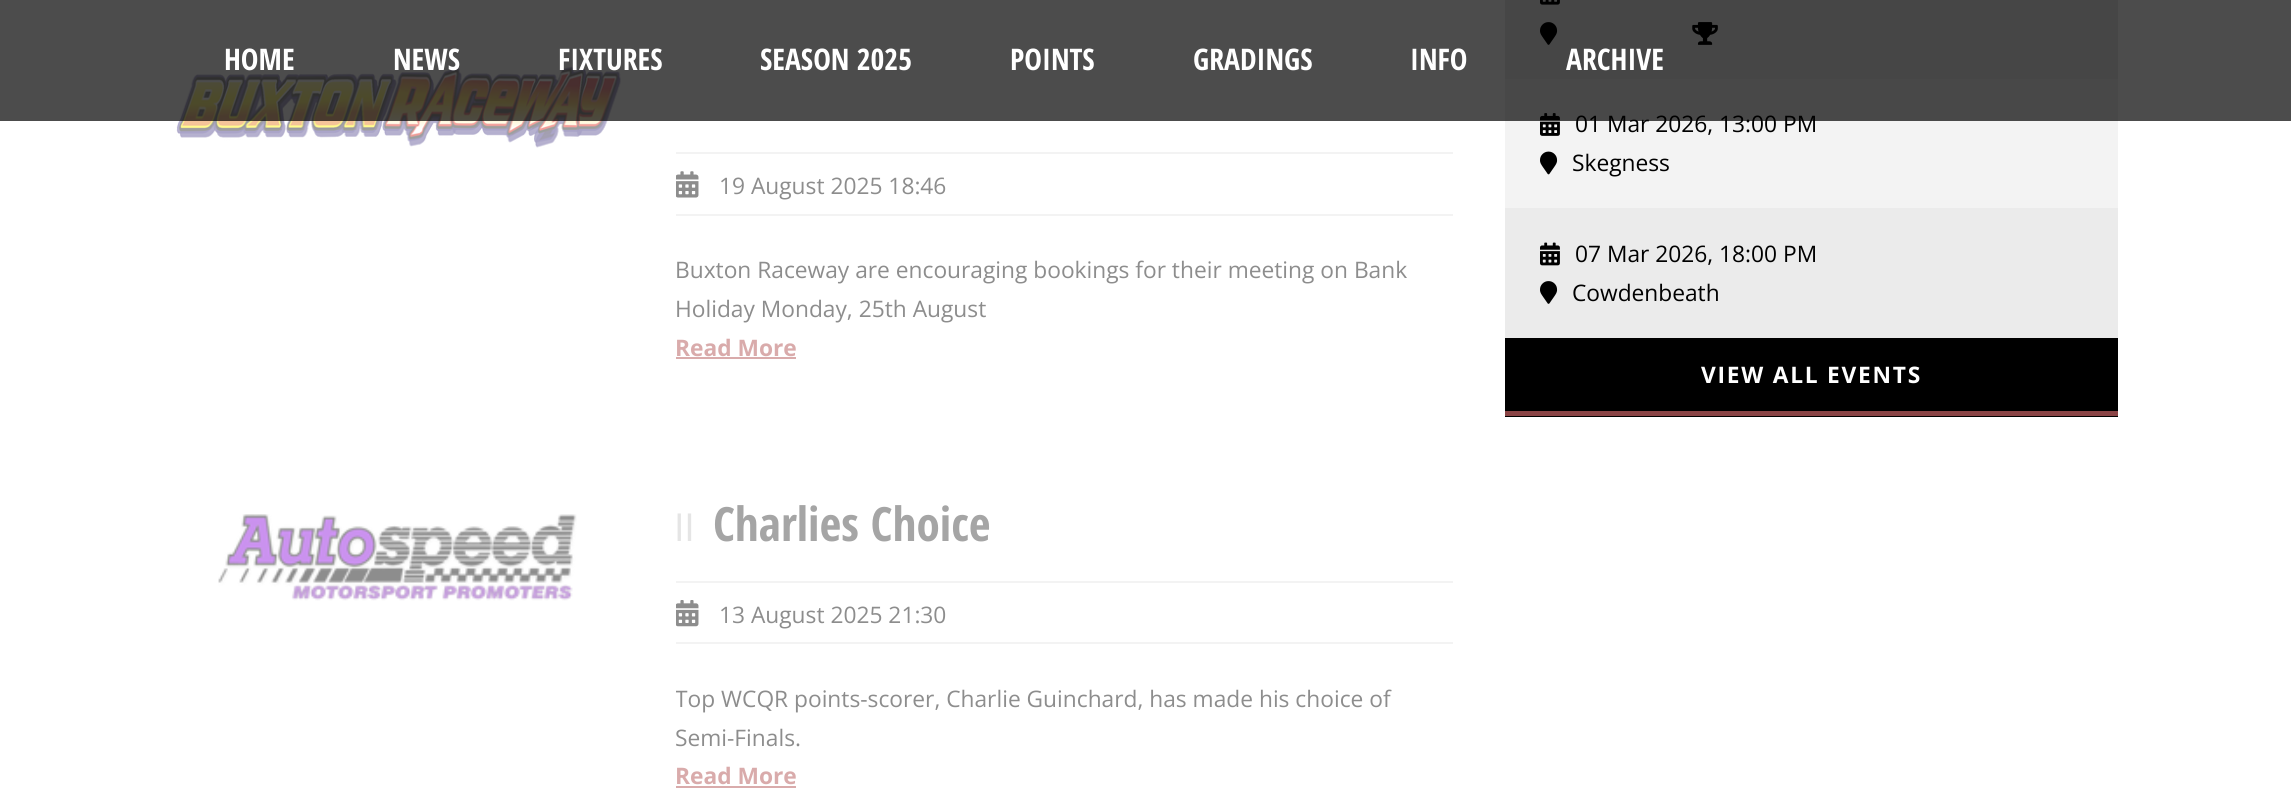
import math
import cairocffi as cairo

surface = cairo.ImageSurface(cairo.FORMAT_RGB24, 2291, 804)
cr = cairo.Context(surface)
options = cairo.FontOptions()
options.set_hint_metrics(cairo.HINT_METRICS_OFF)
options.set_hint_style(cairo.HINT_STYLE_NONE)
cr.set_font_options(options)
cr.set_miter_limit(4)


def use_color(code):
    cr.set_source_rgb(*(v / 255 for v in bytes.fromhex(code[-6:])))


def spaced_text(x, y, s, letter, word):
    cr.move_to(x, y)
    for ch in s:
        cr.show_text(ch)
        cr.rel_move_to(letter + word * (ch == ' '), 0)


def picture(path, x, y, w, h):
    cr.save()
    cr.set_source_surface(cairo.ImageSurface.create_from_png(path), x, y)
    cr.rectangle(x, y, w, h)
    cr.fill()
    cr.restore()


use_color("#ffffff")
cr.paint()
picture("img1.png", 176, 66, 445, 82)
use_color("#ebebeb")
cr.rectangle(1505, 0, 613, 79)
cr.fill()
picture("img5.png", 1540, 0, 20, 5)
picture("img6.png", 1540, 22, 18, 23)
picture("img7.png", 1692, 22, 26, 23)
use_color("#f3f3f3")
cr.rectangle(1505, 79, 613, 129)
cr.fill()
picture("img8.png", 1540, 113, 20, 23)
cr.select_font_face("Open Sans")
cr.set_font_size(22.75)
use_color("#000000")
cr.move_to(1575, 132)
cr.show_text("01 Mar 2026, 13:00 PM")
cr.set_source_rgba(0, 0, 0, 0.7)
cr.rectangle(0, 0, 2291, 121)
cr.fill()
cr.select_font_face("Open Sans Condensed", cairo.FONT_SLANT_NORMAL, cairo.FONT_WEIGHT_BOLD)
cr.set_font_size(29.75)
use_color("#ffffff")
cr.move_to(224, 70)
cr.show_text("HOME")
cr.move_to(393, 70)
cr.show_text("NEWS")
cr.move_to(558, 70)
cr.show_text("FIXTURES")
cr.move_to(760, 70)
cr.show_text("SEASON 2025")
cr.move_to(1010, 70)
cr.show_text("POINTS")
cr.move_to(1193, 70)
cr.show_text("GRADINGS")
cr.move_to(1410, 70)
cr.show_text("INFO")
cr.move_to(1566, 70)
cr.show_text("ARCHIVE")
use_color("#f3f3f3")
cr.rectangle(676, 152, 777, 2)
cr.fill()
cr.rectangle(676, 214, 777, 2)
cr.fill()
picture("img2.png", 676, 171, 23, 27)
cr.select_font_face("Open Sans")
cr.set_font_size(22.75)
use_color("#8d8d8d")
cr.move_to(719, 194)
cr.show_text("19 August 2025 18:46")
cr.move_to(675, 278)
cr.show_text("Buxton Raceway are encouraging bookings for their meeting on Bank")
cr.move_to(675, 317)
cr.show_text("Holiday Monday, 25th August")
cr.select_font_face("Open Sans", cairo.FONT_SLANT_NORMAL, cairo.FONT_WEIGHT_BOLD)
use_color("#d9abab")
cr.move_to(675, 356)
cr.show_text("Read More")
cr.rectangle(676, 357, 120, 2)
cr.fill()
picture("img3.png", 218, 514, 359, 87)
cr.select_font_face("Liberation Sans")
cr.set_font_size(38)
use_color("#e5e5e5")
spaced_text(675, 541, "ll", 1.75, 0)
cr.select_font_face("Open Sans Condensed", cairo.FONT_SLANT_NORMAL, cairo.FONT_WEIGHT_BOLD)
cr.set_font_size(47.25)
use_color("#a5a5a5")
cr.move_to(713, 541)
cr.show_text("Charlies Choice")
use_color("#f3f3f3")
cr.rectangle(676, 581, 777, 2)
cr.fill()
cr.rectangle(676, 642, 777, 2)
cr.fill()
picture("img4.png", 676, 600, 23, 27)
cr.select_font_face("Open Sans")
cr.set_font_size(22.75)
use_color("#8d8d8d")
cr.move_to(719, 623)
cr.show_text("13 August 2025 21:30")
cr.save()
cr.rectangle(676, 679, 777, 116)
cr.clip()
cr.move_to(675, 707)
cr.show_text("Top WCQR points-scorer, Charlie Guinchard, has made his choice of")
cr.move_to(675, 746)
cr.show_text("Semi-Finals.")
cr.restore()
cr.select_font_face("Open Sans", cairo.FONT_SLANT_NORMAL, cairo.FONT_WEIGHT_BOLD)
use_color("#d9abab")
cr.move_to(675, 784)
cr.show_text("Read More")
cr.rectangle(676, 786, 120, 2)
cr.fill()
picture("img9.png", 1540, 151, 18, 24)
cr.select_font_face("Open Sans")
use_color("#000000")
cr.move_to(1572, 171)
cr.show_text("Skegness")
use_color("#ebebeb")
cr.rectangle(1505, 208, 613, 130)
cr.fill()
picture("img10.png", 1540, 242, 20, 24)
use_color("#000000")
cr.move_to(1575, 262)
cr.show_text("07 Mar 2026, 18:00 PM")
picture("img6.png", 1540, 281, 18, 23)
cr.move_to(1572, 301)
cr.show_text("Cowdenbeath")
cr.rectangle(1505, 338, 613, 79)
cr.fill()
use_color("#8a4445")
cr.rectangle(1505, 411, 613, 5)
cr.fill()
cr.select_font_face("Open Sans", cairo.FONT_SLANT_NORMAL, cairo.FONT_WEIGHT_BOLD)
use_color("#ffffff")
spaced_text(1701, 383, "VIEW ALL EVENTS", 1.75, 0)
surface.write_to_png("result.png")
